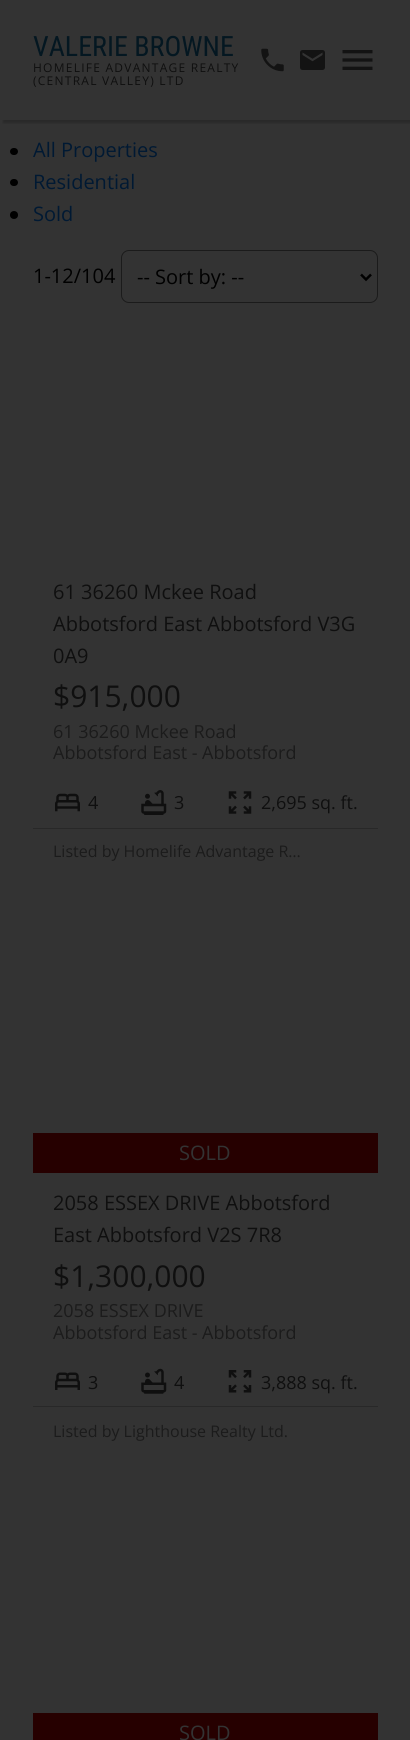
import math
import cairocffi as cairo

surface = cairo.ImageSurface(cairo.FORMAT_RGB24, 410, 1740)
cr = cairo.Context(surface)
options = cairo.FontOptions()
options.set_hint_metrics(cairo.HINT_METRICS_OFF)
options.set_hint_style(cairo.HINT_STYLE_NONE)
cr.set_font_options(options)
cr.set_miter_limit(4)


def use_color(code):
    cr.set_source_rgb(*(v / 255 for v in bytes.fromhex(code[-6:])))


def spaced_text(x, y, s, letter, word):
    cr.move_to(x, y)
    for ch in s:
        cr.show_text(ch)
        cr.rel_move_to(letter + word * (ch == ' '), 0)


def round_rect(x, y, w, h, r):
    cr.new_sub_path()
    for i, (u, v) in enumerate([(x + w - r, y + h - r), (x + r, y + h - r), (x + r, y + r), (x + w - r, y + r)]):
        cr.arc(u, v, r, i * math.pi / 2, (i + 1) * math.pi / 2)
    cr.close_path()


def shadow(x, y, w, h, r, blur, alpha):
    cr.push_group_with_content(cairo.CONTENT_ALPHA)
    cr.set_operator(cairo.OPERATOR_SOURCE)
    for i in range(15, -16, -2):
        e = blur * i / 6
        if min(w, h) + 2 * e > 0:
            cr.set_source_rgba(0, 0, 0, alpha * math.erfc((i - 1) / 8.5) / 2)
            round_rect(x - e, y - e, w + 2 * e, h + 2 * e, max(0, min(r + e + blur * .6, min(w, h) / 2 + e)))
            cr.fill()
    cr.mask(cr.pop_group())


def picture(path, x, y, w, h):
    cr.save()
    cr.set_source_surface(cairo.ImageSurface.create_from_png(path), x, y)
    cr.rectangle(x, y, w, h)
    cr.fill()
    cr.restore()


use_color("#333333")
cr.paint()
cr.save()
cr.rectangle(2, 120, 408, 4)
cr.clip()
use_color("#000000")
shadow(3, 3, 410, 120, 0, 1, 0.2)
cr.restore()
cr.select_font_face("Roboto Condensed")
cr.set_font_size(28)
use_color("#041721")
cr.move_to(33, 56)
cr.show_text("VALERIE BROWNE")
cr.select_font_face("Open Sans")
cr.set_font_size(12)
use_color("#0f0f0f")
spaced_text(33, 72, "HOMELIFE ADVANTAGE REALTY", 1.25, 0)
spaced_text(33, 85, "(CENTRAL VALLEY) LTD", 1.25, 0)
picture("img1.png", 261, 48, 23, 24)
picture("img2.png", 300, 50, 25, 20)
picture("img3.png", 342, 50, 31, 20)
use_color("#000000")
round_rect(10, 148, 8, 7, 3.5)
cr.fill()
cr.set_font_size(20)
use_color("#001933")
cr.move_to(33, 157)
cr.show_text("All Properties")
use_color("#000000")
round_rect(10, 179, 8, 7, 3.5)
cr.fill()
use_color("#001933")
cr.move_to(33, 189)
cr.show_text("Residential")
use_color("#000000")
cr.new_path()
cr.arc(14, 215, 4, 0, 2 * math.pi)
cr.fill()
use_color("#001933")
cr.move_to(33, 221)
cr.show_text("Sold")
use_color("#000000")
cr.move_to(33, 283)
cr.show_text("1-12/104")
round_rect(121.5, 250.5, 256, 52, 7.5)
use_color("#1b1b1b")
cr.set_line_width(1)
cr.stroke()
cr.new_path()
cr.move_to(361, 274.5)
cr.line_to(366, 279.5)
cr.line_to(371, 274.5)
use_color("#000000")
cr.set_line_width(2.5)
cr.stroke()
cr.move_to(137, 284)
cr.show_text("-- Sort by: --")
use_color("#0f0f0f")
cr.move_to(53, 599)
cr.show_text("61 36260 Mckee Road")
cr.move_to(53, 631)
cr.show_text("Abbotsford East Abbotsford V3G")
cr.move_to(53, 663)
cr.show_text("0A9")
cr.set_font_size(30)
cr.move_to(53, 707)
cr.show_text("$915,000")
cr.set_font_size(18)
use_color("#1b1b1b")
cr.move_to(53, 738)
cr.show_text("61 36260 Mckee Road")
cr.move_to(53, 759)
cr.show_text("Abbotsford East -")
cr.move_to(202, 759)
cr.show_text("Abbotsford")
picture("img4.png", 55, 793, 25, 19)
use_color("#0f0f0f")
cr.move_to(88, 809)
cr.show_text("4")
picture("img5.png", 141, 790, 26, 25)
cr.move_to(174, 809)
cr.show_text("3")
picture("img6.png", 228, 791, 24, 23)
cr.move_to(261, 809)
cr.show_text("2,695 sq. ft.")
use_color("#282828")
cr.rectangle(33, 828, 345, 1)
cr.fill()
cr.set_font_size(16)
use_color("#1b1b1b")
cr.move_to(53, 857)
cr.show_text("Listed by Homelife Advantage R…")
use_color("#260000")
cr.rectangle(33, 1133, 345, 40)
cr.fill()
cr.set_font_size(20)
use_color("#333333")
cr.move_to(179, 1160)
cr.show_text("SOLD")
use_color("#0f0f0f")
cr.move_to(53, 1210)
cr.show_text("2058 ESSEX DRIVE Abbotsford")
cr.move_to(53, 1242)
cr.show_text("East Abbotsford V2S 7R8")
cr.set_font_size(30)
cr.move_to(53, 1287)
cr.show_text("$1,300,000")
cr.set_font_size(18)
use_color("#1b1b1b")
cr.move_to(53, 1317)
cr.show_text("2058 ESSEX DRIVE")
cr.move_to(53, 1339)
cr.show_text("Abbotsford East -")
cr.move_to(202, 1339)
cr.show_text("Abbotsford")
picture("img7.png", 55, 1372, 25, 18)
use_color("#0f0f0f")
cr.move_to(88, 1389)
cr.show_text("3")
picture("img8.png", 141, 1368, 26, 26)
cr.move_to(174, 1389)
cr.show_text("4")
picture("img9.png", 228, 1370, 24, 23)
cr.move_to(261, 1389)
cr.show_text("3,888 sq. ft.")
use_color("#282828")
cr.rectangle(33, 1406, 345, 1)
cr.fill()
cr.set_font_size(16)
use_color("#1b1b1b")
cr.move_to(53, 1437)
cr.show_text("Listed by Lighthouse Realty Ltd.")
use_color("#260000")
cr.rectangle(33, 1713, 345, 27)
cr.fill()
cr.set_font_size(20)
use_color("#333333")
cr.move_to(179, 1740)
cr.show_text("SOLD")
surface.write_to_png("result.png")
